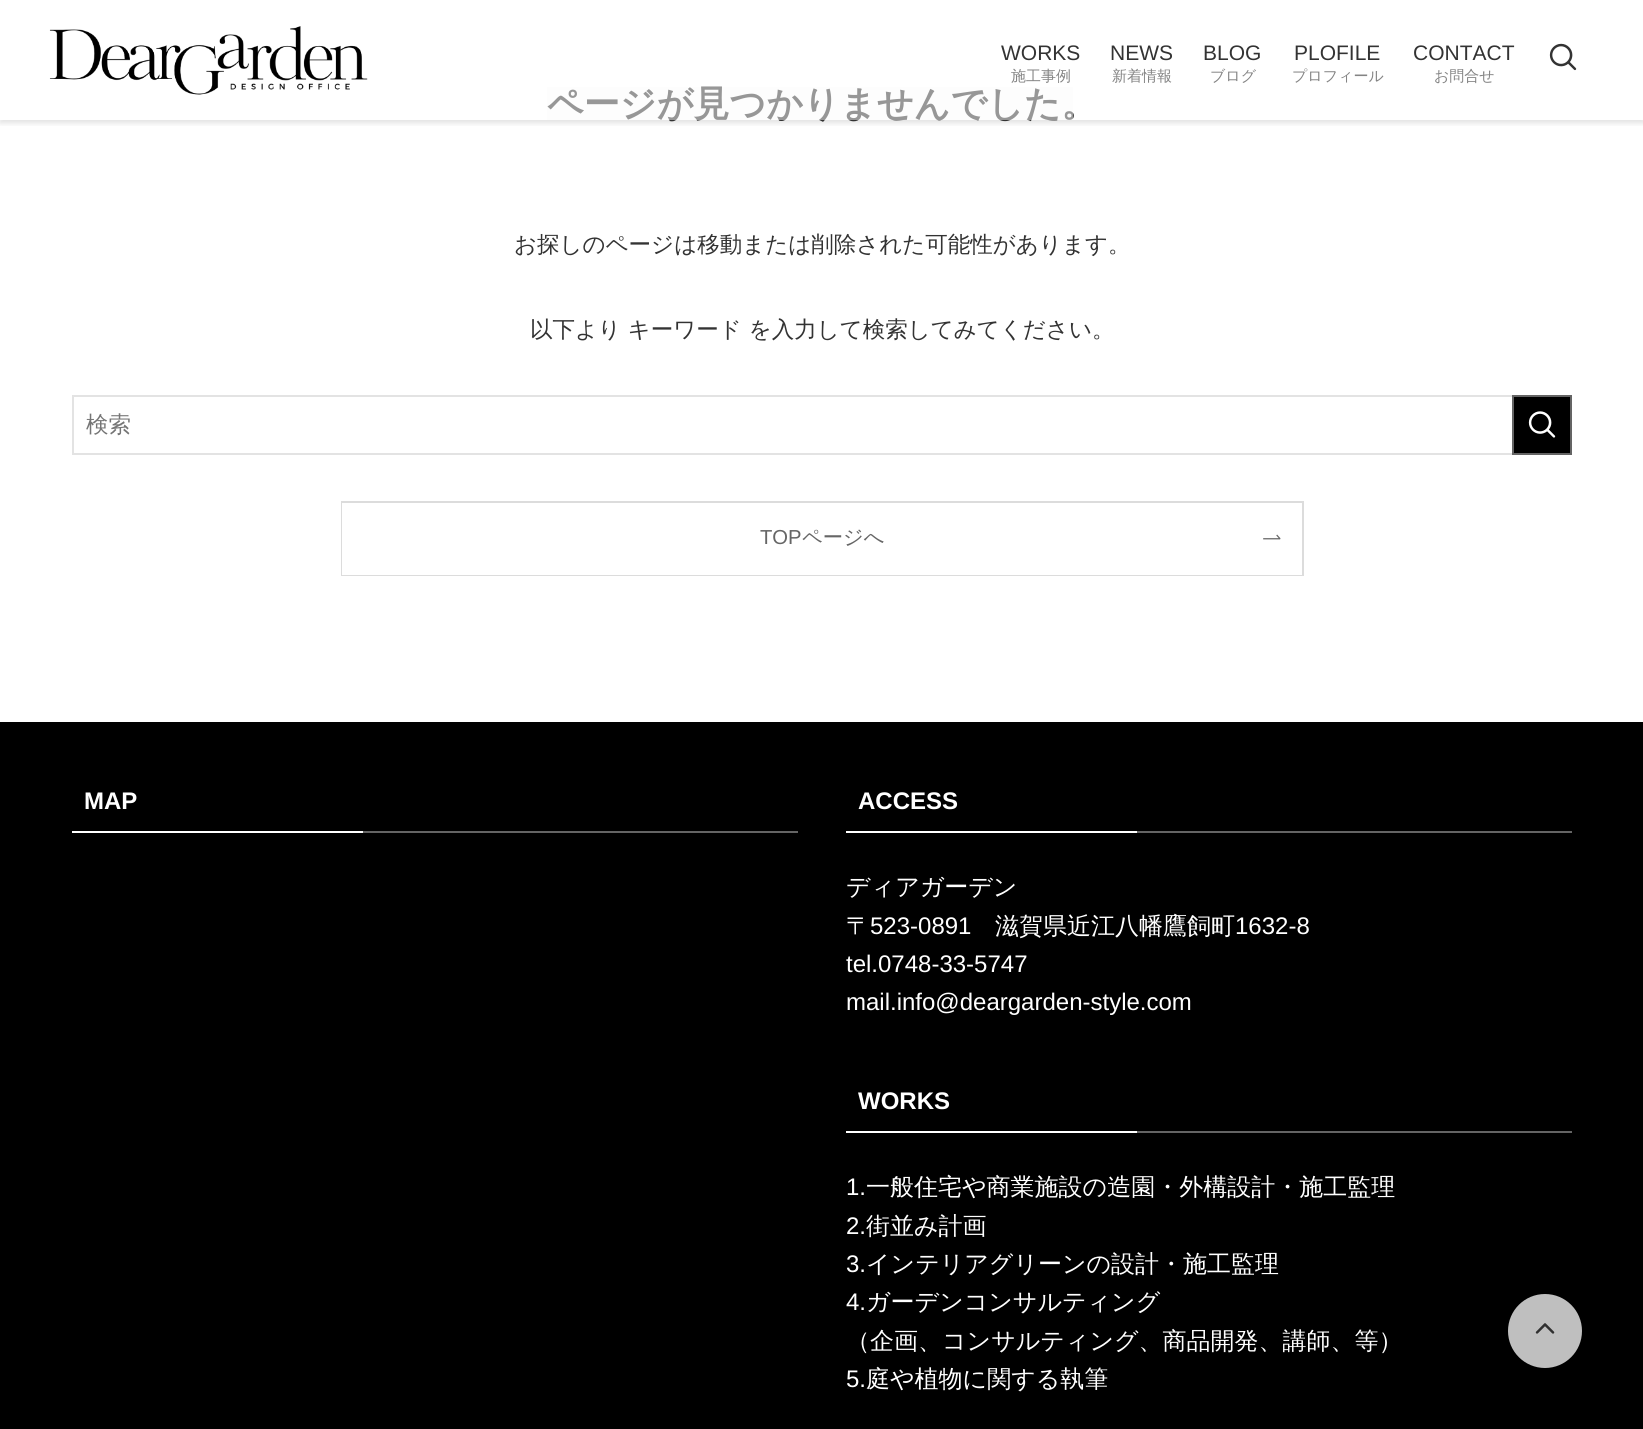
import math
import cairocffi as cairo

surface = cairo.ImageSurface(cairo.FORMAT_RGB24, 1643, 1429)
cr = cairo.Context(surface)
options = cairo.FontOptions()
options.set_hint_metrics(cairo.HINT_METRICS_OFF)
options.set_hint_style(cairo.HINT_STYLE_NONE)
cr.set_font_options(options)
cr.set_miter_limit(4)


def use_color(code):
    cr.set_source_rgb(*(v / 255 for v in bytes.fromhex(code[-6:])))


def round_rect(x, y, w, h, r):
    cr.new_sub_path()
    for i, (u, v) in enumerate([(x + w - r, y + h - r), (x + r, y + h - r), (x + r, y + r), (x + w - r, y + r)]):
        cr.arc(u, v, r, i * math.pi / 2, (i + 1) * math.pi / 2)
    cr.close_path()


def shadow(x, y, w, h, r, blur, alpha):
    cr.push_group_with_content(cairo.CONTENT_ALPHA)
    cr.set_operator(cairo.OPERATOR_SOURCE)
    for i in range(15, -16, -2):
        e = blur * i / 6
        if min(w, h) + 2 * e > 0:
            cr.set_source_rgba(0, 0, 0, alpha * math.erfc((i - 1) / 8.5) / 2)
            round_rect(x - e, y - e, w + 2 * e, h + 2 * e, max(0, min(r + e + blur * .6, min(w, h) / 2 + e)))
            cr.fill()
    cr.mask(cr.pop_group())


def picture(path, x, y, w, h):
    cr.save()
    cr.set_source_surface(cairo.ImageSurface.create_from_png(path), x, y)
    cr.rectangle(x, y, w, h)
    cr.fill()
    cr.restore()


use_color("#ffffff")
cr.paint()
cr.save()
cr.rectangle(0, 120, 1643, 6)
cr.clip()
use_color("#000000")
shadow(0, 3, 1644, 120, 0, 3, 0.12)
cr.restore()
picture("img1.png", 49, 26, 319, 69)
cr.select_font_face("Liberation Sans")
cr.set_font_size(21)
use_color("#333333")
cr.move_to(1001, 60)
cr.show_text("WORKS")
cr.select_font_face("WenQuanYi Zen Hei Medium")
cr.set_font_size(15)
use_color("#848484")
cr.move_to(1011, 81)
cr.show_text("施工事例")
cr.select_font_face("Liberation Sans")
cr.set_font_size(21)
use_color("#333333")
cr.move_to(1110, 60)
cr.show_text("NEWS")
cr.select_font_face("WenQuanYi Zen Hei Medium")
cr.set_font_size(15)
use_color("#848484")
cr.move_to(1112, 81)
cr.show_text("新着情報")
cr.select_font_face("Liberation Sans")
cr.set_font_size(21)
use_color("#333333")
cr.move_to(1203, 60)
cr.show_text("BLOG")
cr.select_font_face("WenQuanYi Zen Hei Medium")
cr.set_font_size(15)
use_color("#848484")
cr.move_to(1210, 81)
cr.show_text("ブログ")
cr.select_font_face("Liberation Sans")
cr.set_font_size(21)
use_color("#333333")
cr.move_to(1294, 60)
cr.show_text("PLOFILE")
cr.select_font_face("WenQuanYi Zen Hei Medium")
cr.set_font_size(15)
use_color("#848484")
cr.move_to(1292, 81)
cr.show_text("プロフィール")
cr.select_font_face("Liberation Sans")
cr.set_font_size(21)
use_color("#333333")
cr.move_to(1413, 60)
cr.show_text("CONTACT")
cr.select_font_face("WenQuanYi Zen Hei Medium")
cr.set_font_size(15)
use_color("#848484")
cr.move_to(1434, 81)
cr.show_text("お問合せ")
picture("img2.png", 1549, 43, 28, 28)
cr.select_font_face("WenQuanYi Zen Hei", cairo.FONT_SLANT_NORMAL, cairo.FONT_WEIGHT_BOLD)
cr.set_font_size(36)
use_color("#333333")
cr.move_to(547, 116)
cr.show_text("ページが見つかりませんでした。")
cr.set_source_rgba(0.992, 0.992, 0.992, 0.5)
cr.rectangle(547, 87, 526, 33)
cr.fill()
cr.select_font_face("WenQuanYi Zen Hei Medium")
cr.set_font_size(22.5)
use_color("#333333")
cr.move_to(514, 252)
cr.show_text("お探しのページは移動または削除された可能性があります。")
cr.move_to(530, 337)
cr.show_text("以下より キーワード を入力して検索してみてください。")
cr.rectangle(73, 396, 1498, 58)
use_color("#e3e3e3")
cr.stroke()
use_color("#757575")
cr.move_to(86, 432)
cr.show_text("検索")
use_color("#000000")
cr.rectangle(1513, 396, 58, 58)
cr.fill_preserve()
use_color("#646464")
cr.stroke()
picture("img3.png", 1528, 411, 28, 27)
cr.rectangle(342, 502, 961, 73)
use_color("#dcdcdc")
cr.stroke()
use_color("#ffffff")
cr.rectangle(342, 503, 960, 72)
cr.fill()
cr.select_font_face("Liberation Sans")
cr.set_font_size(20.25)
use_color("#666666")
cr.move_to(760, 544)
cr.show_text("TOP")
cr.select_font_face("WenQuanYi Zen Hei Medium")
cr.move_to(802, 544)
cr.show_text("ページへ")
picture("img4.png", 1263, 534, 18, 6)
use_color("#000000")
cr.rectangle(0, 722, 1643, 707)
cr.fill()
cr.select_font_face("Liberation Sans", cairo.FONT_SLANT_NORMAL, cairo.FONT_WEIGHT_BOLD)
cr.set_font_size(24)
use_color("#ffffff")
cr.move_to(84, 809)
cr.show_text("MAP")
cr.rectangle(72, 831, 291, 2)
cr.fill()
use_color("#646464")
cr.rectangle(363, 831, 435, 2)
cr.fill()
use_color("#ffffff")
cr.move_to(858, 809)
cr.show_text("ACCESS")
cr.rectangle(846, 831, 291, 2)
cr.fill()
use_color("#646464")
cr.rectangle(1137, 831, 435, 2)
cr.fill()
cr.select_font_face("WenQuanYi Zen Hei Medium")
use_color("#ffffff")
cr.move_to(846, 895)
cr.show_text("ディアガーデン")
cr.move_to(846, 934)
cr.show_text("〒")
cr.select_font_face("Liberation Sans")
cr.move_to(870, 934)
cr.show_text("523-0891")
cr.select_font_face("WenQuanYi Zen Hei Medium")
cr.move_to(995, 934)
cr.show_text("滋賀県近江八幡鷹飼町")
cr.select_font_face("Liberation Sans")
cr.move_to(1235, 934)
cr.show_text("1632-8")
cr.move_to(846, 972)
cr.show_text("tel.0748-33-5747")
cr.move_to(846, 1010)
cr.show_text("mail.info@deargarden-style.com")
cr.select_font_face("Liberation Sans", cairo.FONT_SLANT_NORMAL, cairo.FONT_WEIGHT_BOLD)
cr.move_to(858, 1109)
cr.show_text("WORKS")
cr.rectangle(846, 1131, 291, 2)
cr.fill()
use_color("#646464")
cr.rectangle(1137, 1131, 435, 2)
cr.fill()
cr.select_font_face("Liberation Sans")
use_color("#ffffff")
cr.move_to(846, 1195)
cr.show_text("1.")
cr.select_font_face("WenQuanYi Zen Hei Medium")
cr.move_to(866, 1195)
cr.show_text("一般住宅や商業施設の造園・外構設計・施工監理")
cr.select_font_face("Liberation Sans")
cr.move_to(846, 1234)
cr.show_text("2.")
cr.select_font_face("WenQuanYi Zen Hei Medium")
cr.move_to(866, 1234)
cr.show_text("街並み計画")
cr.select_font_face("Liberation Sans")
cr.move_to(846, 1272)
cr.show_text("3.")
cr.select_font_face("WenQuanYi Zen Hei Medium")
cr.move_to(866, 1272)
cr.show_text("インテリアグリーンの設計・施工監理")
cr.select_font_face("Liberation Sans")
cr.move_to(846, 1310)
cr.show_text("4.")
cr.select_font_face("WenQuanYi Zen Hei Medium")
cr.move_to(866, 1310)
cr.show_text("ガーデンコンサルティング")
cr.move_to(846, 1349)
cr.show_text("（企画、コンサルティング、商品開発、講師、等）")
cr.select_font_face("Liberation Sans")
cr.move_to(846, 1387)
cr.show_text("5.")
cr.select_font_face("WenQuanYi Zen Hei Medium")
cr.move_to(866, 1387)
cr.show_text("庭や植物に関する執筆")
use_color("#bfbfbf")
cr.new_path()
cr.arc(1545, 1331, 38, 0, 2 * math.pi)
cr.fill_preserve()
use_color("#000000")
cr.stroke()
picture("img5.png", 1535, 1323, 20, 11)
surface.write_to_png("result.png")
